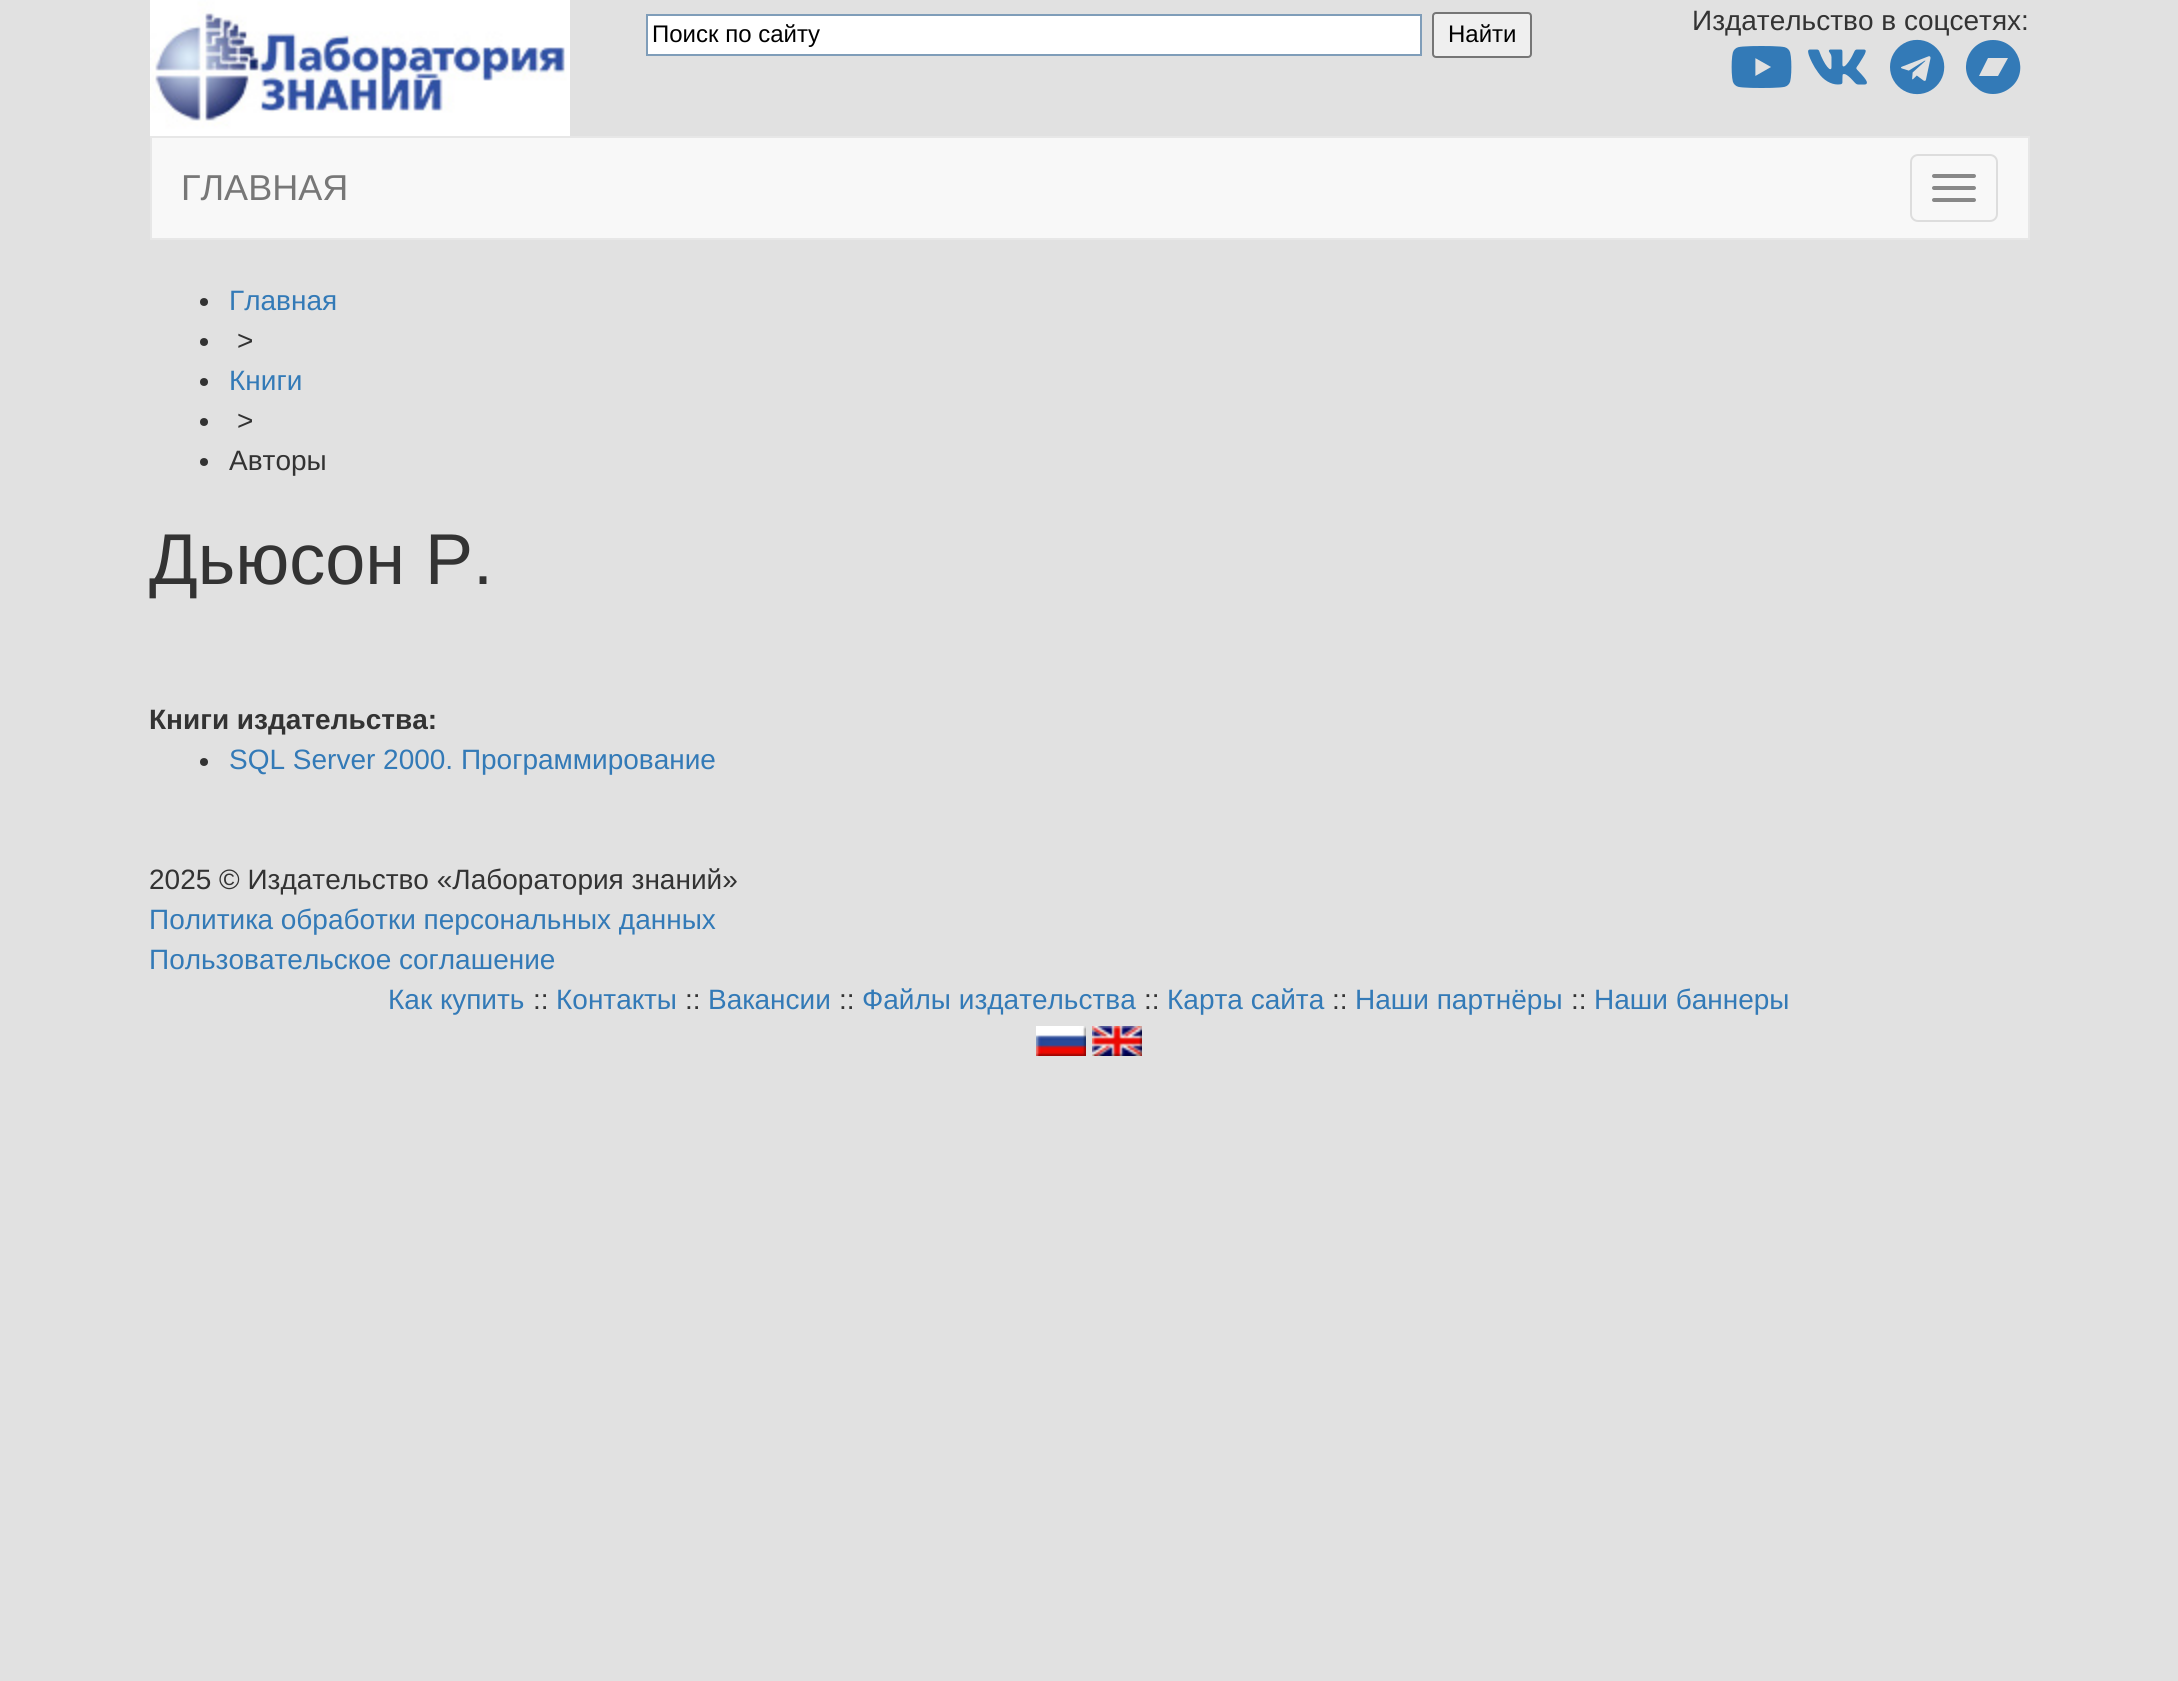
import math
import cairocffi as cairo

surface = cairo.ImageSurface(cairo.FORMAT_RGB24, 2178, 1681)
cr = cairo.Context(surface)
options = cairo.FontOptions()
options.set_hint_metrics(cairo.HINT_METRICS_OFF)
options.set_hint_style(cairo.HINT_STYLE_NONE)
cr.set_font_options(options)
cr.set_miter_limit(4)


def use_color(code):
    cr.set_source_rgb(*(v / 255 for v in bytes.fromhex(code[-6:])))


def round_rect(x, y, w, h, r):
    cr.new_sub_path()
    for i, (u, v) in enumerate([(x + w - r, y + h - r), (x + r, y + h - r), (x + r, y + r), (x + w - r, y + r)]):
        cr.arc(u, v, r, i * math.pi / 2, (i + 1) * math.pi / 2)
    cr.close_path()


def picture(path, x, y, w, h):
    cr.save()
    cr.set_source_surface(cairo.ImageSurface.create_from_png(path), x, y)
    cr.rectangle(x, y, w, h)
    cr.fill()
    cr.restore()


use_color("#e1e1e1")
cr.paint()
picture("img1.png", 150, 0, 420, 136)
use_color("#ffffff")
cr.rectangle(647, 15, 774, 40)
cr.fill_preserve()
use_color("#7f9db9")
cr.stroke()
cr.select_font_face("Liberation Sans")
cr.set_font_size(24)
use_color("#000000")
cr.move_to(652, 42)
cr.show_text("Поиск по сайту")
use_color("#efefef")
round_rect(1433, 13, 98, 44, 3)
cr.fill_preserve()
use_color("#767676")
cr.stroke()
use_color("#000000")
cr.move_to(1448, 42)
cr.show_text("Найти")
cr.set_font_size(28)
use_color("#333333")
cr.move_to(1692, 30)
cr.show_text("Издательство в соцсетях:")
picture("img2.png", 1731, 46, 61, 42)
picture("img3.png", 1808, 49, 59, 36)
picture("img4.png", 1890, 39, 55, 56)
use_color("#337ab7")
cr.new_path()
cr.move_to(1993, 40)
cr.curve_to(1967, 40, 1956, 73, 1977, 88)
cr.curve_to(1981, 92, 1987, 94, 1993, 94)
cr.curve_to(1999, 94, 2005, 92, 2010, 88)
cr.curve_to(2030, 73, 2019, 40, 1993, 40)
cr.close_path()
cr.move_to(1998, 76)
cr.line_to(1979, 76)
cr.line_to(1988, 58)
cr.line_to(2008, 58)
cr.close_path()
cr.fill()
use_color("#f8f8f8")
cr.rectangle(151, 137, 1878, 102)
cr.fill_preserve()
use_color("#e7e7e7")
cr.stroke()
cr.set_font_size(36)
use_color("#777777")
cr.move_to(181, 200)
cr.show_text("ГЛАВНАЯ")
round_rect(1911, 155, 86, 66, 7)
use_color("#dddddd")
cr.stroke()
use_color("#888888")
round_rect(1932, 174, 44, 4, 2)
cr.fill()
round_rect(1932, 186, 44, 4, 2)
cr.fill()
round_rect(1932, 198, 44, 4, 2)
cr.fill()
use_color("#333333")
cr.arc(204, 302, 4, 0, 2 * math.pi)
cr.fill()
cr.set_font_size(28)
use_color("#337ab7")
cr.move_to(229, 310)
cr.show_text("Главная")
use_color("#333333")
cr.new_path()
cr.arc(204, 342, 4, 0, 2 * math.pi)
cr.fill()
cr.move_to(237, 350)
cr.show_text(">")
cr.new_path()
cr.arc(204, 382, 4, 0, 2 * math.pi)
cr.fill()
use_color("#337ab7")
cr.move_to(229, 390)
cr.show_text("Книги")
use_color("#333333")
cr.new_path()
cr.arc(204, 422, 4, 0, 2 * math.pi)
cr.fill()
cr.move_to(237, 430)
cr.show_text(">")
cr.new_path()
cr.arc(204, 462, 4, 0, 2 * math.pi)
cr.fill()
cr.move_to(229, 470)
cr.show_text("Авторы")
cr.set_font_size(72)
cr.move_to(149, 584)
cr.show_text("Дьюсон Р.")
cr.select_font_face("Liberation Sans", cairo.FONT_SLANT_NORMAL, cairo.FONT_WEIGHT_BOLD)
cr.set_font_size(28)
cr.move_to(149, 729)
cr.show_text("Книги издательства:")
cr.new_path()
cr.arc(204, 762, 4, 0, 2 * math.pi)
cr.fill()
cr.select_font_face("Liberation Sans")
use_color("#337ab7")
cr.move_to(229, 769)
cr.show_text("SQL Server 2000. Программирование")
use_color("#333333")
cr.move_to(149, 889)
cr.show_text("2025 © Издательство «Лаборатория знаний»")
use_color("#337ab7")
cr.move_to(149, 929)
cr.show_text("Политика обработки персональных данных")
cr.move_to(149, 969)
cr.show_text("Пользовательское соглашение")
cr.move_to(388, 1009)
cr.show_text("Как купить")
use_color("#333333")
cr.move_to(533, 1009)
cr.show_text("::")
use_color("#337ab7")
cr.move_to(556, 1009)
cr.show_text("Контакты")
use_color("#333333")
cr.move_to(685, 1009)
cr.show_text("::")
use_color("#337ab7")
cr.move_to(708, 1009)
cr.show_text("Вакансии")
use_color("#333333")
cr.move_to(839, 1009)
cr.show_text("::")
use_color("#337ab7")
cr.move_to(862, 1009)
cr.show_text("Файлы издательства")
use_color("#333333")
cr.move_to(1144, 1009)
cr.show_text("::")
use_color("#337ab7")
cr.move_to(1167, 1009)
cr.show_text("Карта сайта")
use_color("#333333")
cr.move_to(1332, 1009)
cr.show_text("::")
use_color("#337ab7")
cr.move_to(1355, 1009)
cr.show_text("Наши партнёры")
use_color("#333333")
cr.move_to(1571, 1009)
cr.show_text("::")
use_color("#337ab7")
cr.move_to(1594, 1009)
cr.show_text("Наши баннеры")
picture("img5.png", 1036, 1026, 50, 30)
picture("img6.png", 1092, 1026, 50, 30)
surface.write_to_png("result.png")
